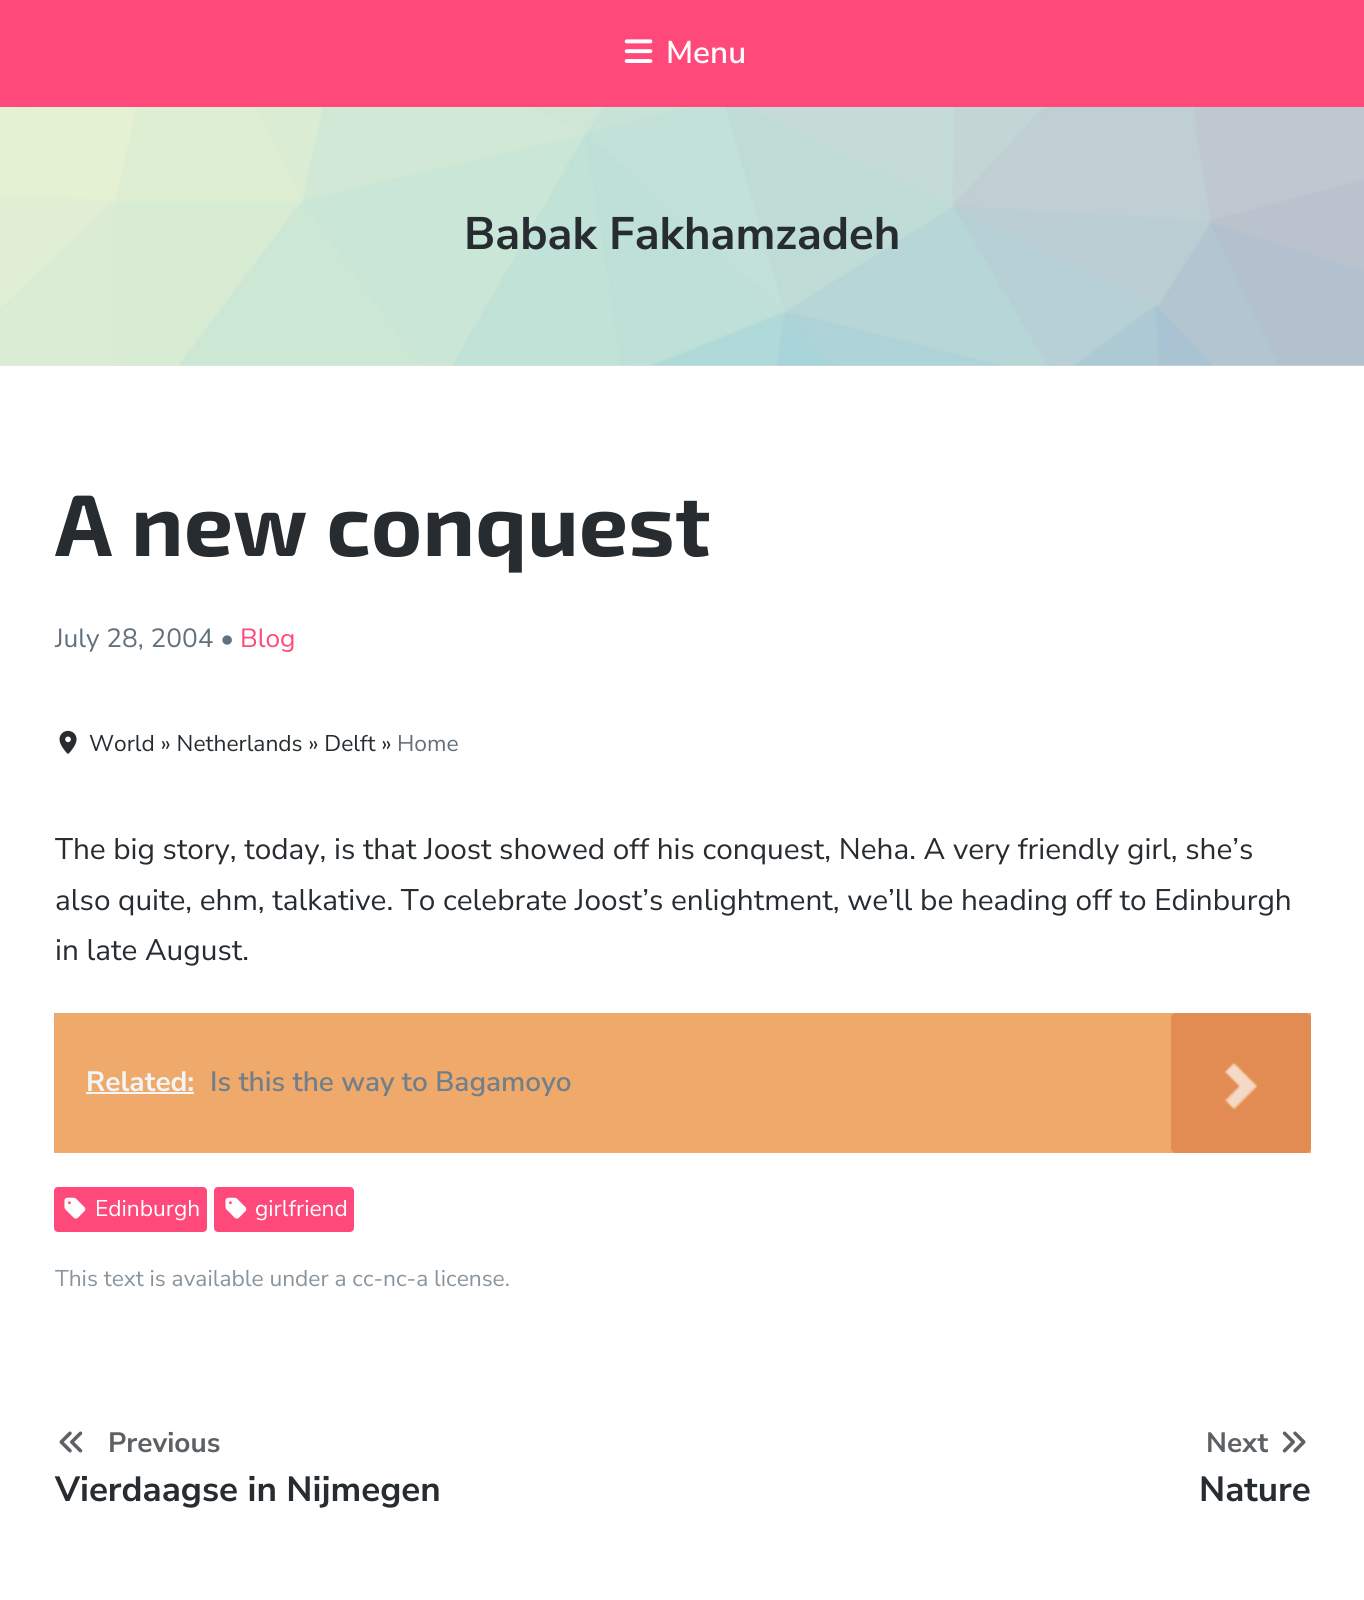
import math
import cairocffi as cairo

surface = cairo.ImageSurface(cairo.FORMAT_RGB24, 1364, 1600)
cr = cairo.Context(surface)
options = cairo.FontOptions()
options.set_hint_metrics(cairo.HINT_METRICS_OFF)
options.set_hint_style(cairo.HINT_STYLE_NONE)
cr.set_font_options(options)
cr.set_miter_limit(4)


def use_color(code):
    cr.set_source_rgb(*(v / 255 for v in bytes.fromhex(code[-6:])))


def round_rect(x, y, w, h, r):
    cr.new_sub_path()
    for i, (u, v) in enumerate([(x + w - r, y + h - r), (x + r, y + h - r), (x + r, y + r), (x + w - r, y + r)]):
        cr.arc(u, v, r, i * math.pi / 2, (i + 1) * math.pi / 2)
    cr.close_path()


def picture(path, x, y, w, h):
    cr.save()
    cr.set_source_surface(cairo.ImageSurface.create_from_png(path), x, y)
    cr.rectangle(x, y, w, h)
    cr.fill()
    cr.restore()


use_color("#ffffff")
cr.paint()
use_color("#f2f2f2")
cr.rectangle(0, 107, 1364, 259)
cr.fill()
use_color("#ff497a")
cr.rectangle(0, 0, 1364, 107)
cr.fill()
picture("img1.png", 624, 39, 29, 24)
cr.select_font_face("Nunito Sans SemiBold")
cr.set_font_size(31.5)
use_color("#ffffff")
cr.move_to(666, 63)
cr.show_text("Menu")
picture("img2.png", 0, 107, 1364, 259)
cr.select_font_face("Nunito Sans", cairo.FONT_SLANT_NORMAL, cairo.FONT_WEIGHT_BOLD)
cr.set_font_size(45.5)
use_color("#272c30")
cr.move_to(464, 249)
cr.show_text("Babak Fakhamzadeh")
cr.select_font_face("Exo 2", cairo.FONT_SLANT_NORMAL, cairo.FONT_WEIGHT_BOLD)
cr.set_font_size(87.5)
cr.move_to(55, 556)
cr.show_text("A new conquest")
cr.select_font_face("Nunito Sans")
cr.set_font_size(26.25)
use_color("#62707c")
cr.move_to(55, 647)
cr.show_text("July 28, 2004 •")
use_color("#ff497a")
cr.move_to(240, 647)
cr.show_text("Blog")
picture("img3.png", 59, 730, 18, 24)
cr.set_font_size(22.75)
use_color("#272c30")
cr.move_to(89, 751)
cr.show_text("World » Netherlands » Delft »")
use_color("#62707c")
cr.move_to(397, 751)
cr.show_text("Home")
cr.set_font_size(29.75)
use_color("#272c30")
cr.move_to(55, 859)
cr.show_text("The big story, today, is that Joost showed off his conquest, Neha. A very friendly girl, she’s")
cr.move_to(55, 910)
cr.show_text("also quite, ehm, talkative. To celebrate Joost’s enlightment, we’ll be heading off to Edinburgh")
cr.move_to(55, 960)
cr.show_text("in late August.")
use_color("#eea96b")
cr.rectangle(54, 1013, 1257, 140)
cr.fill()
cr.select_font_face("Nunito Sans", cairo.FONT_SLANT_NORMAL, cairo.FONT_WEIGHT_BOLD)
cr.set_font_size(28)
use_color("#f2f5f6")
cr.move_to(86, 1091)
cr.show_text("Related:")
cr.rectangle(86, 1092, 108, 2)
cr.fill()
cr.select_font_face("Nunito Sans SemiBold")
use_color("#727e8a")
cr.move_to(210, 1091)
cr.show_text("Is this the way to Bagamoyo")
use_color("#e28c54")
round_rect(1171, 1013, 140, 140, 5)
cr.fill()
picture("img4.png", 1224, 1062, 34, 48)
use_color("#ff497a")
round_rect(55, 1188, 151, 43, 3)
cr.fill_preserve()
cr.stroke()
picture("img5.png", 64, 1197, 22, 22)
cr.select_font_face("Nunito Sans")
cr.set_font_size(22.75)
use_color("#ffffff")
cr.move_to(95, 1216)
cr.show_text("Edinburgh")
use_color("#ff497a")
round_rect(215, 1188, 138, 43, 3)
cr.fill_preserve()
cr.stroke()
picture("img5.png", 225, 1197, 22, 22)
use_color("#ffffff")
cr.move_to(255, 1216)
cr.show_text("girlfriend")
use_color("#89949d")
cr.move_to(55, 1286)
cr.show_text("This text is available under a cc-nc-a license.")
picture("img6.png", 59, 1431, 24, 22)
cr.select_font_face("Nunito Sans", cairo.FONT_SLANT_NORMAL, cairo.FONT_WEIGHT_BOLD)
cr.set_font_size(28)
use_color("#5d6164")
cr.move_to(108, 1452)
cr.show_text("Previous")
cr.set_font_size(35)
use_color("#272c30")
cr.move_to(55, 1501)
cr.show_text("Vierdaagse in Nijmegen")
cr.set_font_size(28)
use_color("#5d6164")
cr.move_to(1206, 1452)
cr.show_text("Next")
picture("img7.png", 1282, 1431, 24, 22)
cr.set_font_size(35)
use_color("#272c30")
cr.move_to(1199, 1501)
cr.show_text("Nature")
surface.write_to_png("result.png")
